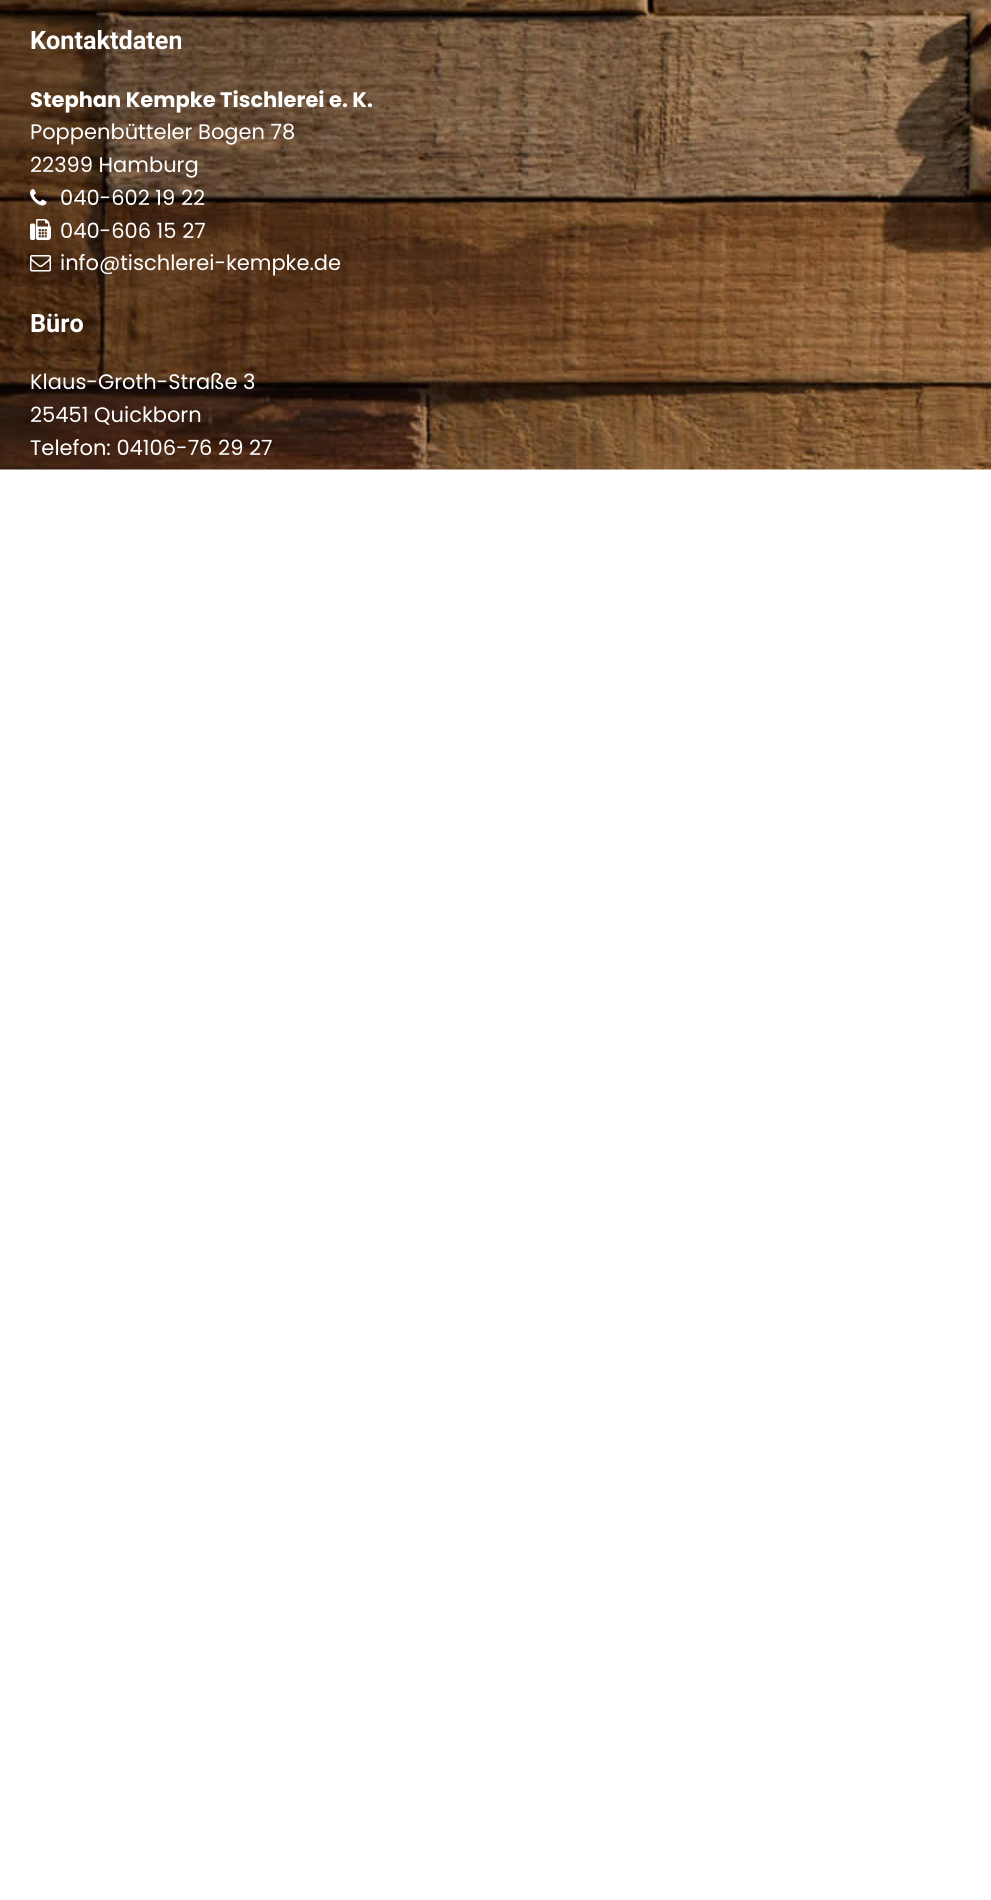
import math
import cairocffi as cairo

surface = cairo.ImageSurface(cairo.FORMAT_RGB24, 991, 1900)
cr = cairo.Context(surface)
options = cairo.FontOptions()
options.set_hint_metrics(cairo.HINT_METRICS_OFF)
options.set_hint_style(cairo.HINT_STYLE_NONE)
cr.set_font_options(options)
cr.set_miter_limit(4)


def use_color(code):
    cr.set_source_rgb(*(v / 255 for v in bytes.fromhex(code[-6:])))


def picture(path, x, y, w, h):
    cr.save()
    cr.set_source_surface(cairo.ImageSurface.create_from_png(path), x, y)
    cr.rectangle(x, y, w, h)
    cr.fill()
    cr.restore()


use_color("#ffffff")
cr.paint()
picture("img1.png", 0, 0, 991, 470)
cr.select_font_face("Roboto", cairo.FONT_SLANT_NORMAL, cairo.FONT_WEIGHT_BOLD)
cr.set_font_size(25.25)
use_color("#ffffff")
cr.move_to(30, 49)
cr.show_text("Kontaktdaten")
cr.select_font_face("Poppins", cairo.FONT_SLANT_NORMAL, cairo.FONT_WEIGHT_BOLD)
cr.set_font_size(21)
cr.move_to(30, 107)
cr.show_text("Stephan Kempke Tischlerei e. K.")
cr.select_font_face("Poppins")
cr.move_to(30, 139)
cr.show_text("Poppenbütteler Bogen 78")
cr.move_to(30, 172)
cr.show_text("22399 Hamburg")
picture("img2.png", 30, 189, 17, 17)
cr.move_to(60, 205)
cr.show_text("040-602 19 22")
picture("img3.png", 30, 219, 21, 21)
cr.move_to(60, 238)
cr.show_text("040-606 15 27")
picture("img4.png", 30, 255, 21, 17)
cr.move_to(60, 270)
cr.show_text("info@tischlerei-kempke.de")
cr.select_font_face("Roboto", cairo.FONT_SLANT_NORMAL, cairo.FONT_WEIGHT_BOLD)
cr.set_font_size(25.25)
cr.move_to(30, 332)
cr.show_text("Büro")
cr.select_font_face("Poppins")
cr.set_font_size(21)
cr.move_to(30, 389)
cr.show_text("Klaus-Groth-Straße 3")
cr.move_to(30, 422)
cr.show_text("25451 Quickborn")
cr.move_to(30, 455)
cr.show_text("Telefon: 04106-76 29 27")
surface.write_to_png("result.png")
